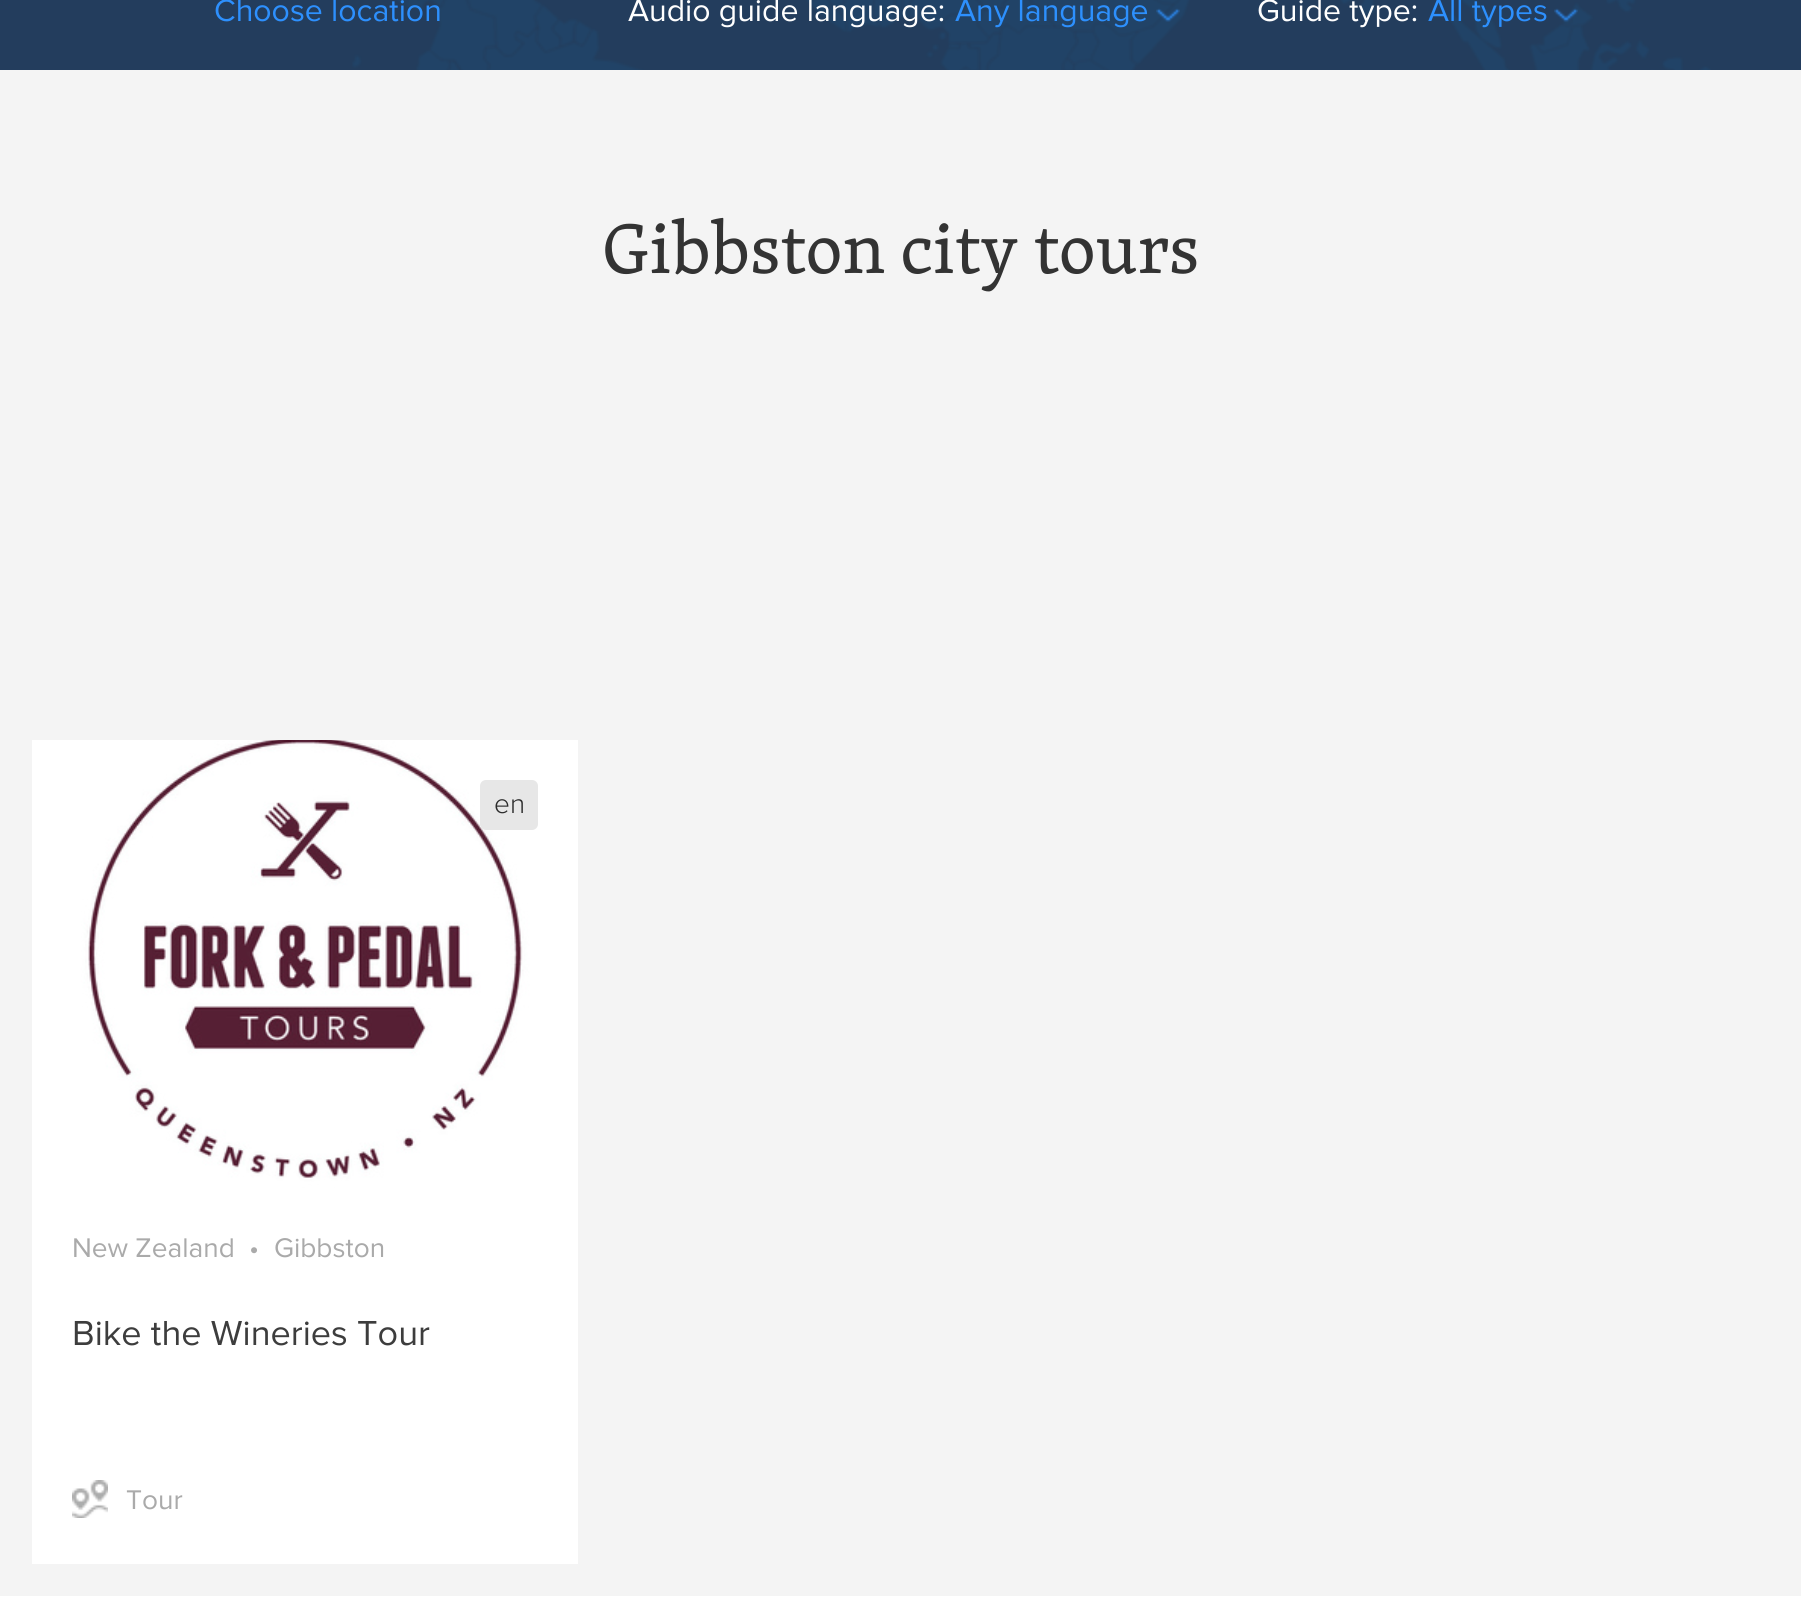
import math
import cairocffi as cairo

surface = cairo.ImageSurface(cairo.FORMAT_RGB24, 1801, 1599)
cr = cairo.Context(surface)
options = cairo.FontOptions()
options.set_hint_metrics(cairo.HINT_METRICS_OFF)
options.set_hint_style(cairo.HINT_STYLE_NONE)
cr.set_font_options(options)
cr.set_miter_limit(4)


def use_color(code):
    cr.set_source_rgb(*(v / 255 for v in bytes.fromhex(code[-6:])))


def round_rect(x, y, w, h, r):
    cr.new_sub_path()
    for i, (u, v) in enumerate([(x + w - r, y + h - r), (x + r, y + h - r), (x + r, y + r), (x + w - r, y + r)]):
        cr.arc(u, v, r, i * math.pi / 2, (i + 1) * math.pi / 2)
    cr.close_path()


def picture(path, x, y, w, h):
    cr.save()
    cr.set_source_surface(cairo.ImageSurface.create_from_png(path), x, y)
    cr.rectangle(x, y, w, h)
    cr.fill()
    cr.restore()


use_color("#233d5d")
cr.paint()
picture("img1.png", 352, 0, 1359, 70)
cr.select_font_face("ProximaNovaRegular")
cr.set_font_size(32)
use_color("#2d90fe")
cr.move_to(214, 21)
cr.show_text("Choose location")
use_color("#ffffff")
cr.move_to(628, 21)
cr.show_text("Audio guide language:")
use_color("#2d90fe")
cr.move_to(955, 21)
cr.show_text("Any language")
picture("img2.png", 1156, 8, 24, 14)
use_color("#ffffff")
cr.move_to(1257, 21)
cr.show_text("Guide type:")
use_color("#2d90fe")
cr.move_to(1428, 21)
cr.show_text("All types")
picture("img3.png", 1554, 8, 24, 14)
use_color("#f4f4f4")
cr.rectangle(0, 70, 1801, 1526)
cr.fill()
cr.select_font_face("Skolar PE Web")
cr.set_font_size(72)
use_color("#333333")
cr.move_to(602, 273)
cr.show_text("Gibbston city tours")
use_color("#ffffff")
cr.rectangle(32, 1192, 546, 372)
cr.fill()
picture("img4.png", 32, 740, 546, 452)
use_color("#e7e7e7")
round_rect(480, 780, 58, 50, 6)
cr.fill()
cr.select_font_face("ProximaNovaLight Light")
cr.set_font_size(28)
use_color("#2c2c2c")
cr.move_to(494, 813)
cr.show_text("en")
cr.select_font_face("ProximaNovaRegular")
use_color("#aaaaaa")
cr.move_to(72, 1257)
cr.show_text("New Zealand")
cr.move_to(249, 1257)
cr.show_text("•")
cr.move_to(274, 1257)
cr.show_text("Gibbston")
cr.set_font_size(36)
use_color("#3d3d3d")
cr.move_to(72, 1345)
cr.show_text("Bike the Wineries Tour")
picture("img5.png", 72, 1480, 36, 38)
cr.set_font_size(28)
use_color("#aaaaaa")
cr.move_to(126, 1509)
cr.show_text("Tour")
use_color("#ffffff")
cr.rectangle(0, 1596, 1801, 3)
cr.fill()
surface.write_to_png("result.png")
